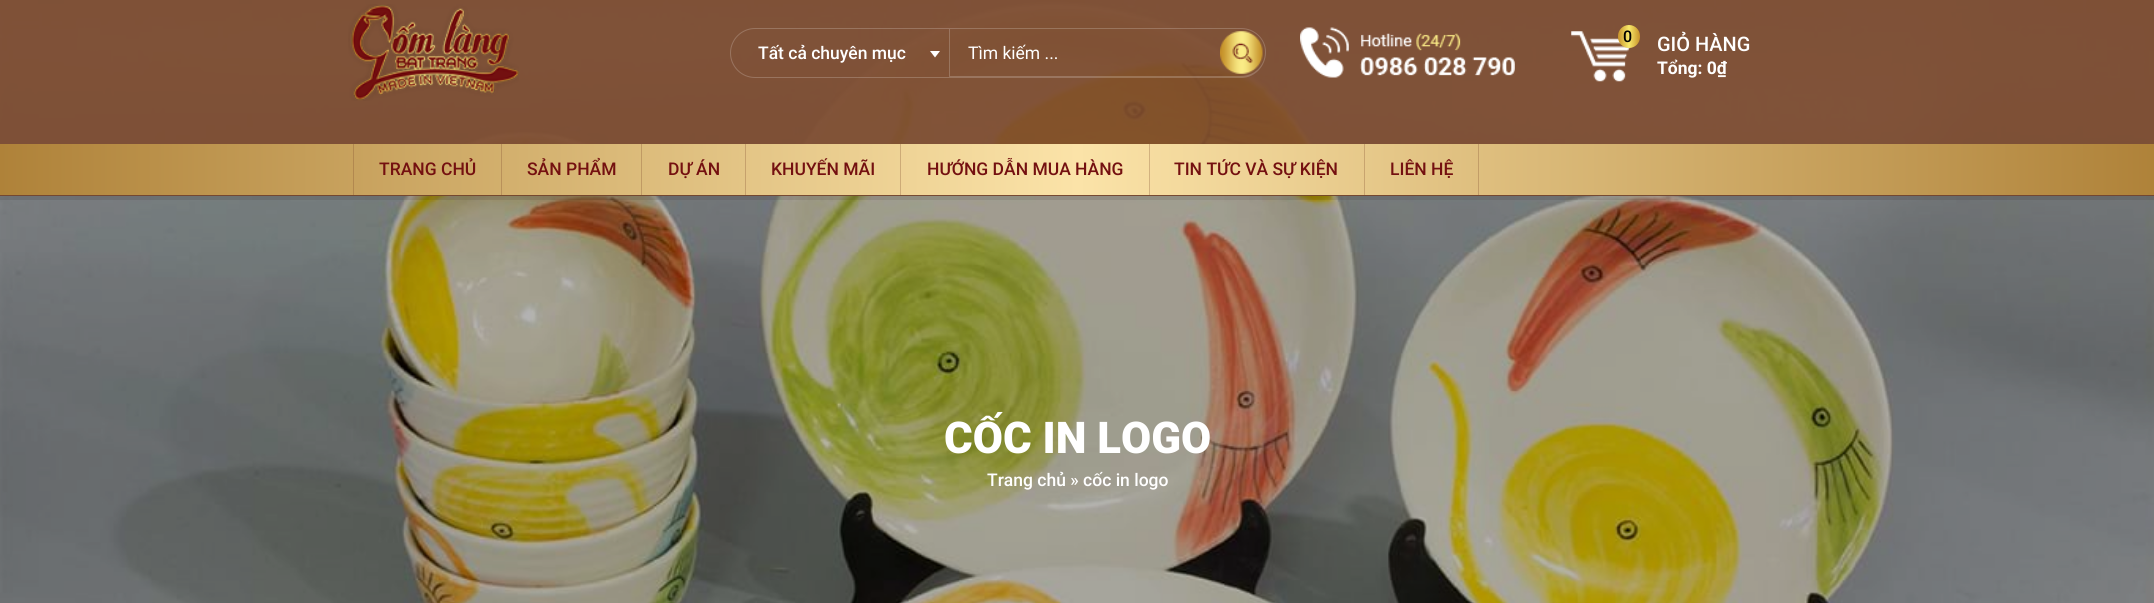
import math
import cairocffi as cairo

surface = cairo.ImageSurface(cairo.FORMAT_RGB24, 2154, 603)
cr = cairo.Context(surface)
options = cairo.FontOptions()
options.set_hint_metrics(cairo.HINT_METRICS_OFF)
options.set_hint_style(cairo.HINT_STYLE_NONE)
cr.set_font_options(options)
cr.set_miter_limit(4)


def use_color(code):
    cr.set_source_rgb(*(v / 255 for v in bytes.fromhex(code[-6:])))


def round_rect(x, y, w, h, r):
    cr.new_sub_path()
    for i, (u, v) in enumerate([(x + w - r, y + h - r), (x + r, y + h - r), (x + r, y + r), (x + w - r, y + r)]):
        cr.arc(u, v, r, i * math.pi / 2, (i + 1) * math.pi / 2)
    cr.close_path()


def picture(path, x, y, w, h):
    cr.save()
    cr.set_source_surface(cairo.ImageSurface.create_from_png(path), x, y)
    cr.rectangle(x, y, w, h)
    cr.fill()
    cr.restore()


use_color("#ffffff")
cr.paint()
picture("img5.png", 0, 0, 2154, 603)
cr.set_source_rgba(0.498, 0.298, 0.184, 0.9)
cr.rectangle(0, 0, 2154, 196)
cr.fill()
picture("img1.png", 348, 4, 171, 97)
cr.new_path()
cr.move_to(755, 28.5)
cr.line_to(949.5, 28.5)
cr.line_to(949.5, 77.5)
cr.line_to(755, 77.5)
cr.curve_to(741.5, 77.5, 730.5, 66.5, 730.5, 53)
cr.curve_to(730.5, 39.5, 741.5, 28.5, 755, 28.5)
cr.close_path()
cr.set_source_rgba(1, 1, 1, 0.2)
cr.set_line_width(1)
cr.stroke()
cr.select_font_face("Roboto Medium")
cr.set_font_size(17.5)
use_color("#ffffff")
cr.move_to(758, 59)
cr.show_text("Tất cả chuyên mục")
cr.new_path()
cr.move_to(930, 51)
cr.line_to(940, 51)
cr.line_to(935, 57.5)
cr.close_path()
cr.fill()
cr.set_source_rgba(1, 1, 1, 0.2)
cr.set_fill_rule(cairo.FILL_RULE_EVEN_ODD)
cr.new_path()
cr.move_to(950, 28)
cr.line_to(1241, 28)
cr.curve_to(1255, 28, 1266, 39, 1266, 52)
cr.curve_to(1266, 66, 1255, 78, 1241, 78)
cr.line_to(950, 78)
cr.close_path()
cr.move_to(950, 29)
cr.line_to(1241, 29)
cr.curve_to(1254, 29, 1265, 39, 1265, 52)
cr.curve_to(1265, 66, 1254, 76, 1241, 76)
cr.line_to(950, 76)
cr.close_path()
cr.fill()
cr.select_font_face("Roboto")
use_color("#ffffff")
cr.move_to(968, 59)
cr.show_text("Tìm kiếm ...")
picture("img2.png", 1220, 31, 43, 43)
picture("img3.png", 1300, 27, 215, 51)
picture("img4.png", 1571, 31, 60, 51)
gradient = cairo.LinearGradient(1618, 36, 1640, 36)
gradient.add_color_stop_rgba(0, 0.78, 0.573, 0.165, 1)
gradient.add_color_stop_rgba(0.5, 0.973, 0.914, 0.416, 1)
gradient.add_color_stop_rgba(1, 0.78, 0.573, 0.165, 1)
cr.set_source(gradient)
round_rect(1618, 25, 22, 23, 11)
cr.fill()
cr.select_font_face("Roboto Medium")
cr.set_font_size(16)
use_color("#000000")
cr.move_to(1623, 42)
cr.show_text("0")
cr.set_font_size(20)
use_color("#ffffff")
cr.move_to(1657, 51)
cr.show_text("GIỎ HÀNG")
cr.select_font_face("Roboto", cairo.FONT_SLANT_NORMAL, cairo.FONT_WEIGHT_BOLD)
cr.set_font_size(17.5)
cr.move_to(1657, 74)
cr.show_text("Tổng: 0₫")
gradient = cairo.LinearGradient(0, 169, 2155, 169)
gradient.add_color_stop_rgba(0, 0.686, 0.51, 0.224, 1)
gradient.add_color_stop_rgba(0.5, 0.984, 0.89, 0.659, 1)
gradient.add_color_stop_rgba(1, 0.686, 0.51, 0.224, 1)
cr.set_source(gradient)
cr.rectangle(0, 144, 2154, 51)
cr.fill()
use_color("#b9915a")
cr.rectangle(501, 144, 1, 51)
cr.fill()
use_color("#b2884f")
cr.rectangle(353, 144, 1, 51)
cr.fill()
cr.select_font_face("Roboto Medium")
use_color("#741010")
cr.move_to(379, 175)
cr.show_text("TRANG CHỦ")
use_color("#c09a64")
cr.rectangle(641, 144, 1, 51)
cr.fill()
use_color("#741010")
cr.move_to(527, 175)
cr.show_text("SẢN PHẨM")
use_color("#c6a16c")
cr.rectangle(745, 144, 1, 51)
cr.fill()
use_color("#741010")
cr.move_to(668, 175)
cr.show_text("DỰ ÁN")
use_color("#cdab77")
cr.rectangle(900, 144, 1, 51)
cr.fill()
use_color("#741010")
cr.move_to(771, 175)
cr.show_text("KHUYẾN MÃI")
use_color("#d2b27f")
cr.rectangle(1149, 144, 1, 51)
cr.fill()
use_color("#741010")
cr.move_to(927, 175)
cr.show_text("HƯỚNG DẪN MUA HÀNG")
use_color("#c8a46f")
cr.rectangle(1364, 144, 1, 51)
cr.fill()
use_color("#741010")
cr.move_to(1174, 175)
cr.show_text("TIN TỨC VÀ SỰ KIỆN")
use_color("#c29d67")
cr.rectangle(1478, 144, 1, 51)
cr.fill()
use_color("#741010")
cr.move_to(1390, 175)
cr.show_text("LIÊN HỆ")
cr.set_source_rgba(0.082, 0.008, 0.008, 0.1)
cr.rectangle(0, 195, 2154, 5)
cr.fill()
cr.select_font_face("Roboto Black")
cr.set_font_size(43.75)
use_color("#ffffff")
cr.move_to(944, 453)
cr.show_text("CỐC IN LOGO")
cr.select_font_face("Roboto Medium")
cr.set_font_size(17.5)
cr.move_to(987, 486)
cr.show_text("Trang chủ » cốc in logo")
surface.write_to_png("result.png")
